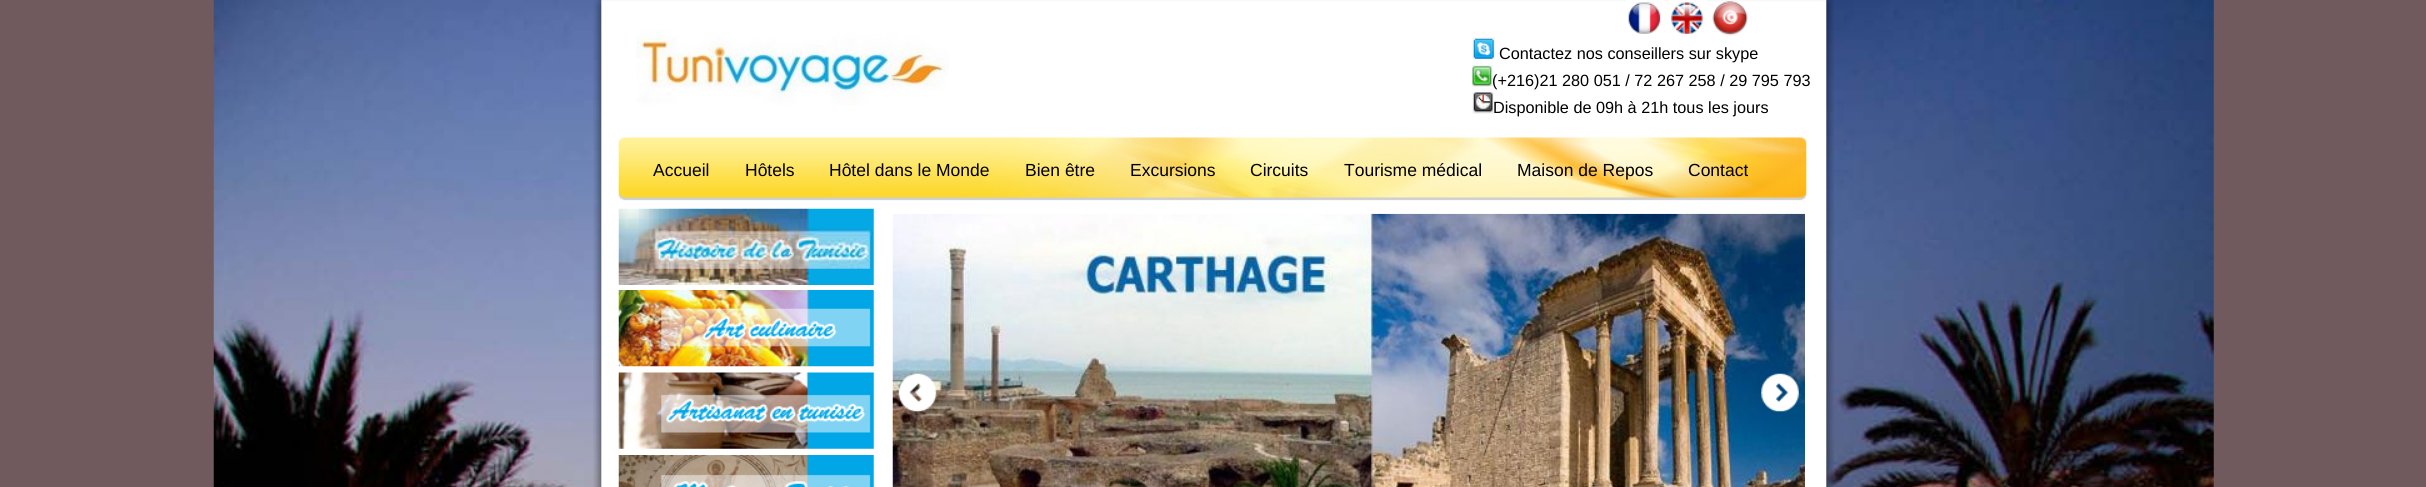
import math
import cairocffi as cairo

surface = cairo.ImageSurface(cairo.FORMAT_RGB24, 2426, 487)
cr = cairo.Context(surface)
options = cairo.FontOptions()
options.set_hint_metrics(cairo.HINT_METRICS_OFF)
options.set_hint_style(cairo.HINT_STYLE_NONE)
cr.set_font_options(options)
cr.set_miter_limit(4)


def use_color(code):
    cr.set_source_rgb(*(v / 255 for v in bytes.fromhex(code[-6:])))


def picture(path, x, y, w, h):
    cr.save()
    cr.set_source_surface(cairo.ImageSurface.create_from_png(path), x, y)
    cr.rectangle(x, y, w, h)
    cr.fill()
    cr.restore()


use_color("#705a5d")
cr.paint()
picture("img1.png", 213, 0, 2001, 487)
picture("img2.png", 593, 0, 1241, 487)
picture("img3.png", 1626, 0, 38, 34)
picture("img4.png", 1669, 0, 37, 34)
picture("img5.png", 1712, 1, 36, 35)
picture("img6.png", 636, 29, 313, 77)
picture("img7.png", 1472, 37, 23, 22)
cr.select_font_face("Liberation Sans")
cr.set_font_size(16.25)
use_color("#000000")
cr.move_to(1499, 59)
cr.show_text("Contactez nos conseillers sur skype")
picture("img8.png", 1472, 65, 21, 22)
cr.move_to(1492, 86)
cr.show_text("(+216)21 280 051 / 72 267 258 / 29 795 793")
picture("img9.png", 1472, 92, 22, 22)
cr.move_to(1493, 113)
cr.show_text("Disponible de 09h à 21h tous les jours")
picture("img10.png", 618, 137, 1189, 64)
cr.set_font_size(17.5)
cr.move_to(653, 176)
cr.show_text("Accueil")
cr.move_to(745, 176)
cr.show_text("Hôtels")
cr.move_to(829, 176)
cr.show_text("Hôtel dans le Monde")
cr.move_to(1025, 176)
cr.show_text("Bien être")
cr.move_to(1130, 176)
cr.show_text("Excursions")
cr.move_to(1250, 176)
cr.show_text("Circuits")
cr.move_to(1344, 176)
cr.show_text("Tourisme médical")
cr.move_to(1517, 176)
cr.show_text("Maison de Repos")
cr.move_to(1688, 176)
cr.show_text("Contact")
picture("img11.png", 618, 208, 256, 77)
picture("img12.png", 618, 290, 256, 77)
picture("img13.png", 618, 372, 256, 77)
picture("img14.png", 618, 455, 256, 32)
picture("img15.png", 892, 213, 913, 274)
picture("img16.png", 898, 373, 39, 39)
picture("img17.png", 1761, 373, 38, 39)
surface.write_to_png("result.png")
